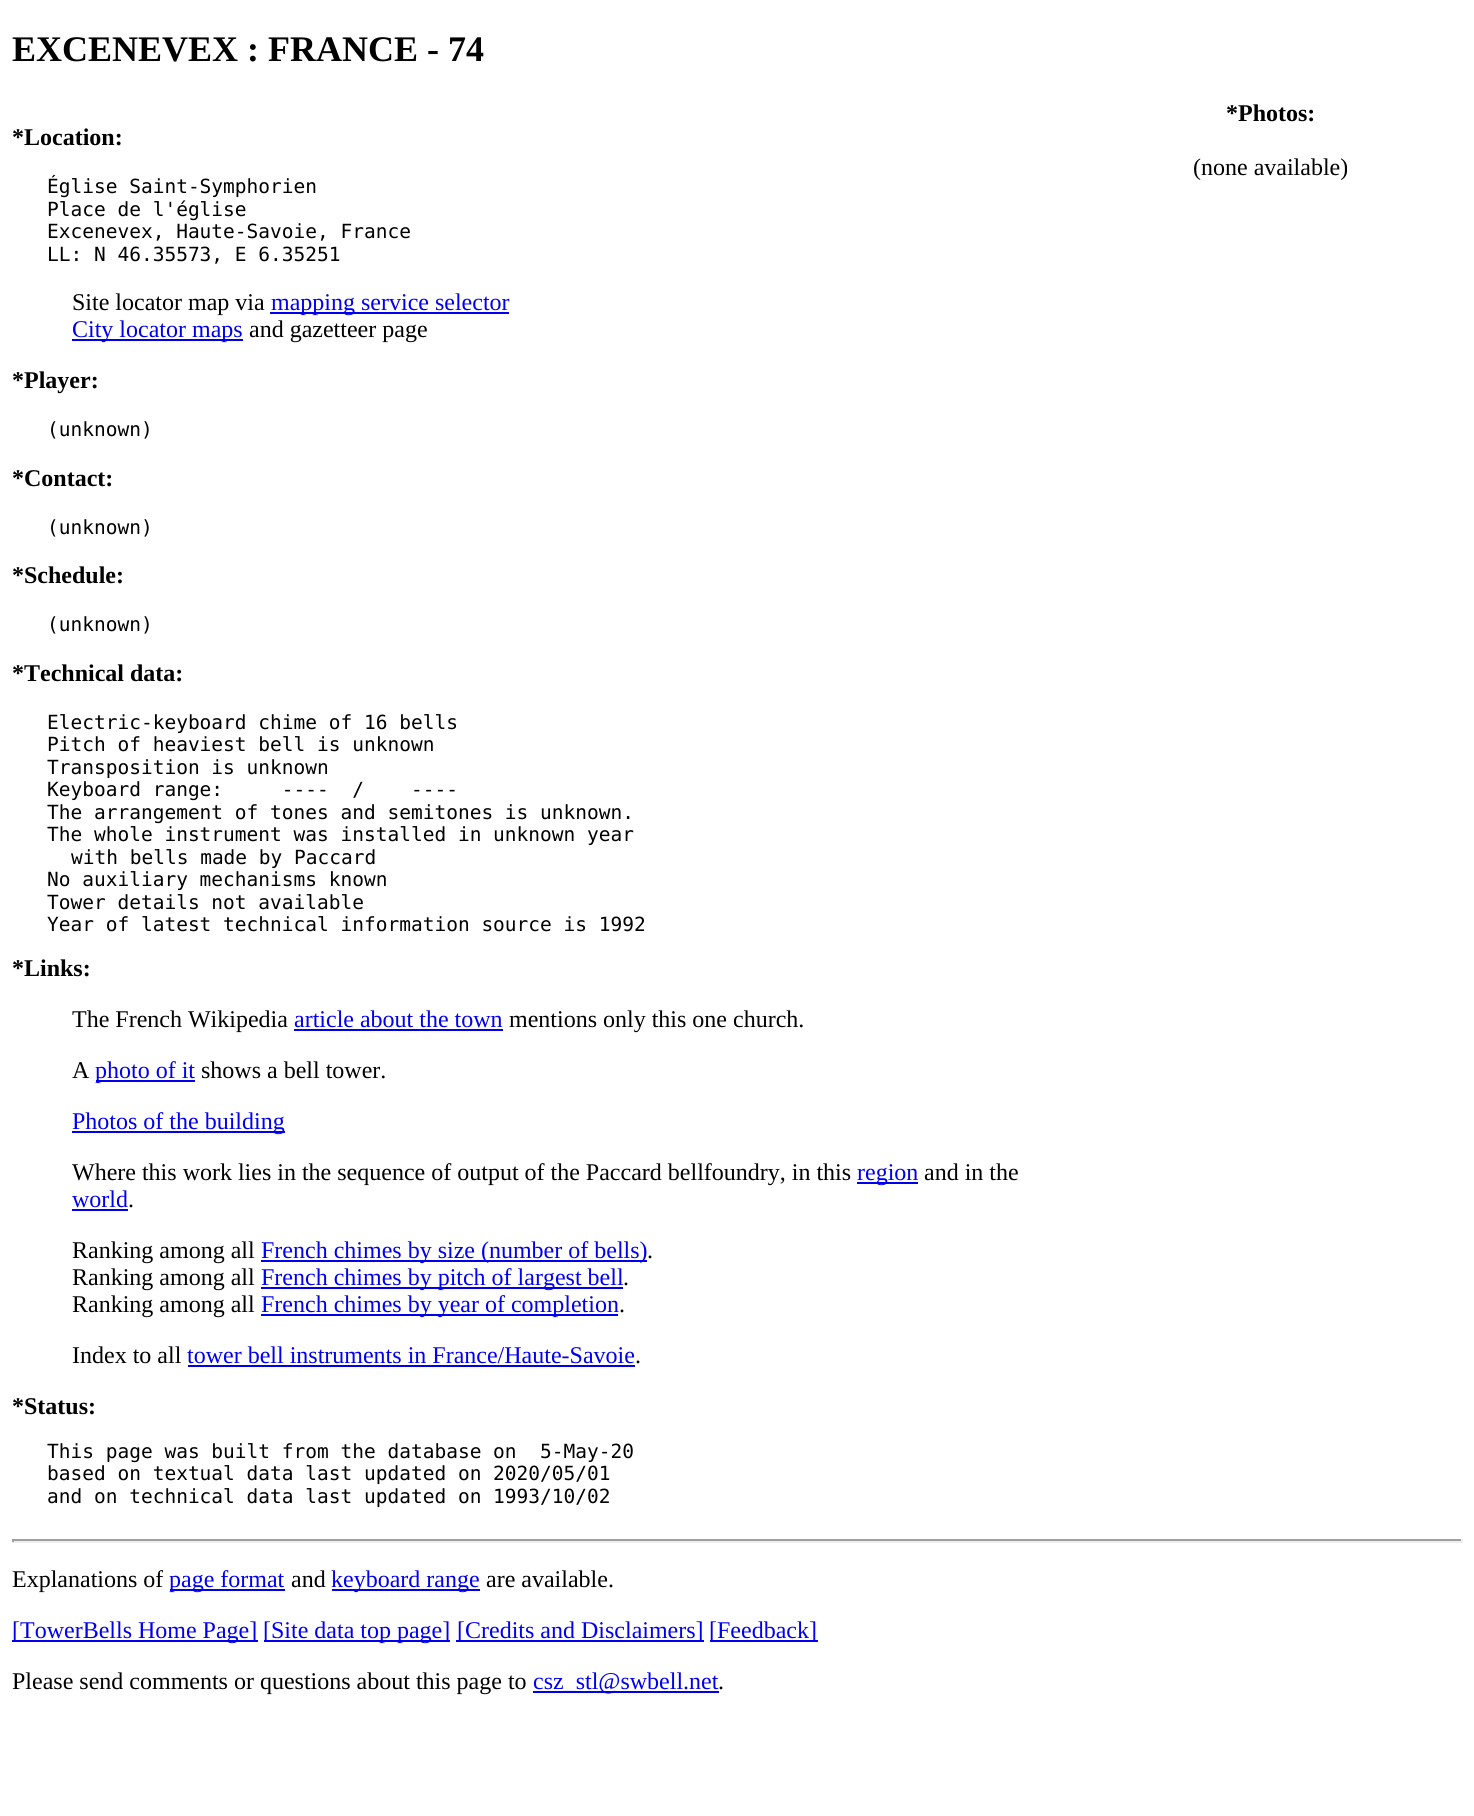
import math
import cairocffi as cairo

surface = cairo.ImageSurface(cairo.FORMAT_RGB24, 1474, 1816)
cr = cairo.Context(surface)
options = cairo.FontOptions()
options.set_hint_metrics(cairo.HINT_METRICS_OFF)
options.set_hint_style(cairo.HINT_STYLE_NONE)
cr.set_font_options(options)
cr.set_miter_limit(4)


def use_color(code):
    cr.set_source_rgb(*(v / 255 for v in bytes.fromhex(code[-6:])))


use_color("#ffffff")
cr.paint()
cr.select_font_face("Liberation Serif", cairo.FONT_SLANT_NORMAL, cairo.FONT_WEIGHT_BOLD)
cr.set_font_size(36)
use_color("#000000")
cr.move_to(12, 61)
cr.show_text("EXCENEVEX : FRANCE - 74")
cr.set_font_size(24)
cr.move_to(12, 145)
cr.show_text("*Location:")
cr.select_font_face("DejaVu Sans Mono")
cr.set_font_size(19.5)
cr.move_to(47, 193)
cr.show_text("Église Saint-Symphorien")
cr.move_to(47, 216)
cr.show_text("Place de l'église")
cr.move_to(47, 238)
cr.show_text("Excenevex, Haute-Savoie, France")
cr.move_to(47, 261)
cr.show_text("LL: N 46.35573, E 6.35251")
cr.select_font_face("Liberation Serif")
cr.set_font_size(24)
cr.move_to(72, 310)
cr.show_text("Site locator map via")
use_color("#0000ee")
cr.rectangle(270, 312, 239, 2)
cr.fill()
cr.move_to(271, 310)
cr.show_text("mapping service selector")
cr.rectangle(72, 339, 171, 2)
cr.fill()
cr.move_to(72, 337)
cr.show_text("City locator maps")
use_color("#000000")
cr.move_to(249, 337)
cr.show_text("and gazetteer page")
cr.select_font_face("Liberation Serif", cairo.FONT_SLANT_NORMAL, cairo.FONT_WEIGHT_BOLD)
cr.move_to(12, 388)
cr.show_text("*Player:")
cr.select_font_face("DejaVu Sans Mono")
cr.set_font_size(19.5)
cr.move_to(47, 436)
cr.show_text("(unknown)")
cr.select_font_face("Liberation Serif", cairo.FONT_SLANT_NORMAL, cairo.FONT_WEIGHT_BOLD)
cr.set_font_size(24)
cr.move_to(12, 486)
cr.show_text("*Contact:")
cr.select_font_face("DejaVu Sans Mono")
cr.set_font_size(19.5)
cr.move_to(47, 534)
cr.show_text("(unknown)")
cr.select_font_face("Liberation Serif", cairo.FONT_SLANT_NORMAL, cairo.FONT_WEIGHT_BOLD)
cr.set_font_size(24)
cr.move_to(12, 583)
cr.show_text("*Schedule:")
cr.select_font_face("DejaVu Sans Mono")
cr.set_font_size(19.5)
cr.move_to(47, 631)
cr.show_text("(unknown)")
cr.select_font_face("Liberation Serif", cairo.FONT_SLANT_NORMAL, cairo.FONT_WEIGHT_BOLD)
cr.set_font_size(24)
cr.move_to(12, 681)
cr.show_text("*Technical data:")
cr.select_font_face("DejaVu Sans Mono")
cr.set_font_size(19.5)
cr.move_to(47, 729)
cr.show_text("Electric-keyboard chime of 16 bells")
cr.move_to(47, 751)
cr.show_text("Pitch of heaviest bell is unknown")
cr.move_to(47, 774)
cr.show_text("Transposition is unknown")
cr.move_to(47, 796)
cr.show_text("Keyboard range:     ----  /    ----")
cr.move_to(47, 819)
cr.show_text("The arrangement of tones and semitones is unknown.")
cr.move_to(47, 841)
cr.show_text("The whole instrument was installed in unknown year")
cr.move_to(71, 864)
cr.show_text("with bells made by Paccard")
cr.move_to(47, 886)
cr.show_text("No auxiliary mechanisms known")
cr.move_to(47, 909)
cr.show_text("Tower details not available")
cr.move_to(47, 931)
cr.show_text("Year of latest technical information source is 1992")
cr.select_font_face("Liberation Serif", cairo.FONT_SLANT_NORMAL, cairo.FONT_WEIGHT_BOLD)
cr.set_font_size(24)
cr.move_to(12, 976)
cr.show_text("*Links:")
cr.select_font_face("Liberation Serif")
cr.move_to(72, 1027)
cr.show_text("The French Wikipedia")
use_color("#0000ee")
cr.move_to(294, 1027)
cr.show_text("article about the town")
cr.rectangle(294, 1029, 209, 2)
cr.fill()
use_color("#000000")
cr.move_to(509, 1027)
cr.show_text("mentions only this one church.")
cr.move_to(72, 1078)
cr.show_text("A")
use_color("#0000ee")
cr.rectangle(96, 1080, 99, 2)
cr.fill()
cr.move_to(95, 1078)
cr.show_text("photo of it")
use_color("#000000")
cr.move_to(201, 1078)
cr.show_text("shows a bell tower.")
use_color("#0000ee")
cr.rectangle(72, 1131, 213, 2)
cr.fill()
cr.move_to(72, 1129)
cr.show_text("Photos of the building")
use_color("#000000")
cr.move_to(72, 1180)
cr.show_text("Where this work lies in the sequence of output of the Paccard bellfoundry, in this")
use_color("#0000ee")
cr.rectangle(857, 1182, 61, 2)
cr.fill()
cr.move_to(857, 1180)
cr.show_text("region")
use_color("#000000")
cr.move_to(924, 1180)
cr.show_text("and in the")
use_color("#0000ee")
cr.move_to(72, 1207)
cr.show_text("world")
cr.rectangle(72, 1209, 56, 2)
cr.fill()
use_color("#000000")
cr.move_to(128, 1207)
cr.show_text(".")
cr.move_to(72, 1258)
cr.show_text("Ranking among all")
use_color("#0000ee")
cr.rectangle(261, 1260, 386, 2)
cr.fill()
cr.move_to(261, 1258)
cr.show_text("French chimes by size (number of bells)")
use_color("#000000")
cr.move_to(647, 1258)
cr.show_text(".")
cr.move_to(72, 1285)
cr.show_text("Ranking among all")
use_color("#0000ee")
cr.rectangle(261, 1287, 362, 2)
cr.fill()
cr.move_to(261, 1285)
cr.show_text("French chimes by pitch of largest bell")
use_color("#000000")
cr.move_to(623, 1285)
cr.show_text(".")
cr.move_to(72, 1312)
cr.show_text("Ranking among all")
use_color("#0000ee")
cr.rectangle(261, 1314, 357, 2)
cr.fill()
cr.move_to(261, 1312)
cr.show_text("French chimes by year of completion")
use_color("#000000")
cr.move_to(619, 1312)
cr.show_text(".")
cr.move_to(72, 1363)
cr.show_text("Index to all")
use_color("#0000ee")
cr.move_to(187, 1363)
cr.show_text("tower bell instruments in France/Haute-Savoie")
cr.rectangle(188, 1365, 447, 2)
cr.fill()
use_color("#000000")
cr.move_to(635, 1363)
cr.show_text(".")
cr.select_font_face("Liberation Serif", cairo.FONT_SLANT_NORMAL, cairo.FONT_WEIGHT_BOLD)
cr.move_to(12, 1414)
cr.show_text("*Status:")
cr.select_font_face("DejaVu Sans Mono")
cr.set_font_size(19.5)
cr.move_to(47, 1458)
cr.show_text("This page was built from the database on  5-May-20")
cr.move_to(47, 1480)
cr.show_text("based on textual data last updated on 2020/05/01")
cr.move_to(47, 1503)
cr.show_text("and on technical data last updated on 1993/10/02")
cr.select_font_face("Liberation Serif", cairo.FONT_SLANT_NORMAL, cairo.FONT_WEIGHT_BOLD)
cr.set_font_size(24)
cr.move_to(1226, 121)
cr.show_text("*Photos:")
cr.select_font_face("Liberation Serif")
cr.move_to(1193, 175)
cr.show_text("(none available)")
use_color("#9f9f9f")
cr.rectangle(12, 1539, 1451, 2)
cr.fill()
use_color("#eeeeee")
cr.rectangle(1461, 1539, 2, 3)
cr.fill()
cr.rectangle(12, 1541, 1451, 2)
cr.fill()
use_color("#9f9f9f")
cr.rectangle(12, 1539, 2, 3)
cr.fill()
use_color("#000000")
cr.move_to(12, 1587)
cr.show_text("Explanations of")
use_color("#0000ee")
cr.rectangle(170, 1589, 115, 2)
cr.fill()
cr.move_to(169, 1587)
cr.show_text("page format")
use_color("#000000")
cr.move_to(291, 1587)
cr.show_text("and")
use_color("#0000ee")
cr.rectangle(332, 1589, 148, 2)
cr.fill()
cr.move_to(331, 1587)
cr.show_text("keyboard range")
use_color("#000000")
cr.move_to(486, 1587)
cr.show_text("are available.")
use_color("#0000ee")
cr.rectangle(12, 1640, 246, 2)
cr.fill()
cr.move_to(12, 1638)
cr.show_text("[TowerBells Home Page]")
cr.rectangle(264, 1640, 186, 2)
cr.fill()
cr.move_to(263, 1638)
cr.show_text("[Site data top page]")
cr.rectangle(456, 1640, 248, 2)
cr.fill()
cr.move_to(457, 1638)
cr.show_text("[Credits and Disclaimers]")
cr.rectangle(710, 1640, 108, 2)
cr.fill()
cr.move_to(709, 1638)
cr.show_text("[Feedback]")
use_color("#000000")
cr.move_to(12, 1689)
cr.show_text("Please send comments or questions about this page to")
use_color("#0000ee")
cr.rectangle(533, 1691, 186, 2)
cr.fill()
cr.move_to(533, 1689)
cr.show_text("csz_stl@swbell.net")
use_color("#000000")
cr.move_to(718, 1689)
cr.show_text(".")
surface.write_to_png("result.png")
